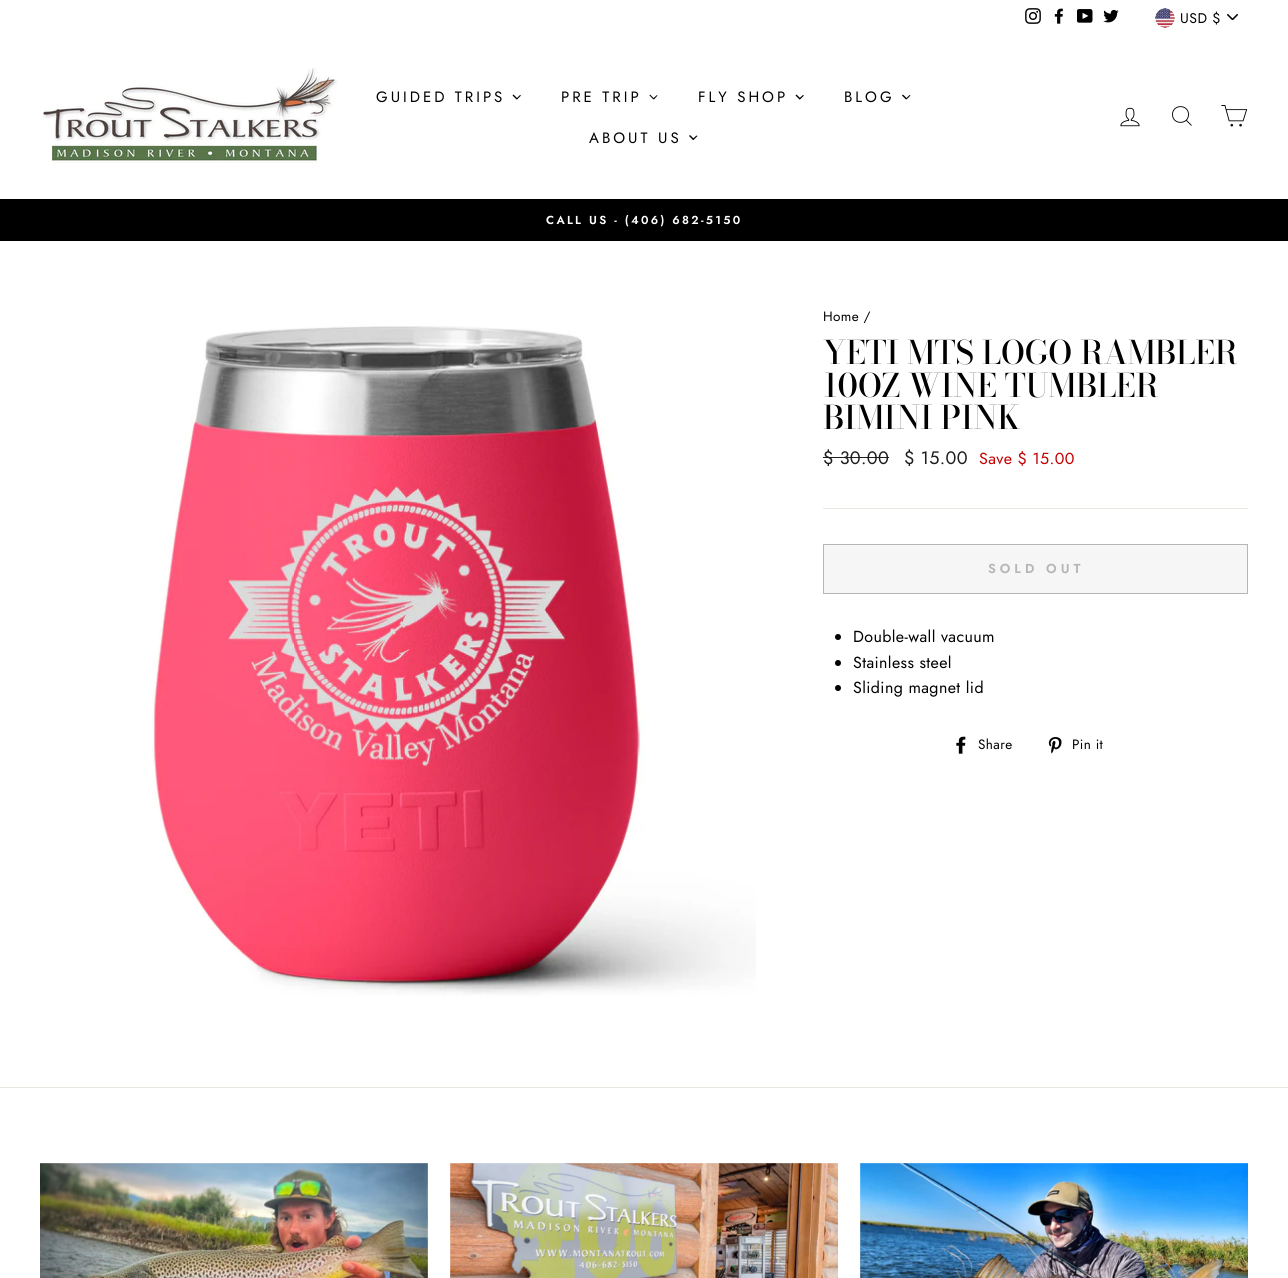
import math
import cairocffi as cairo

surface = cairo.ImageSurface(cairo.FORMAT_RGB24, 1288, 1278)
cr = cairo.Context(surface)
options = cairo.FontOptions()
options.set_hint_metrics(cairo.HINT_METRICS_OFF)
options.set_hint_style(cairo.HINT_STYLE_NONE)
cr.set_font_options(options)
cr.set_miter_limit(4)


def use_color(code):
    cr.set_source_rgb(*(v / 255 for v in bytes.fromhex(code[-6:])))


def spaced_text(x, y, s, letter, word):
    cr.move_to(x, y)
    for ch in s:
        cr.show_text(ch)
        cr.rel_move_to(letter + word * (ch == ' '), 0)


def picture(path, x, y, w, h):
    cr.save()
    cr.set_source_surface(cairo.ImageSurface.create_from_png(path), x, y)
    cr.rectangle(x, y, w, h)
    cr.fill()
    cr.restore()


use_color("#ffffff")
cr.paint()
picture("img1.png", 1025, 8, 16, 16)
picture("img2.png", 1054, 8, 9, 16)
picture("img3.png", 1077, 9, 16, 14)
picture("img4.png", 1103, 9, 16, 14)
picture("img5.png", 1227, 14, 11, 6)
picture("img6.png", 1155, 8, 20, 20)
cr.select_font_face("Jost")
cr.set_font_size(14)
use_color("#000000")
spaced_text(1180, 23, "USD $", 0.5, 0)
picture("img7.png", 43, 68, 295, 96)
cr.set_font_size(15)
spaced_text(376, 102, "GUIDED TRIPS", 3, 0)
cr.new_path()
cr.move_to(520, 95)
cr.line_to(521, 95.5)
cr.line_to(517, 99.5)
cr.line_to(516.5, 98.5)
cr.close_path()
cr.fill()
cr.new_path()
cr.move_to(513.5, 94.5)
cr.line_to(517.5, 98.5)
cr.line_to(516.5, 99.5)
cr.line_to(512.5, 95.5)
cr.close_path()
cr.fill()
spaced_text(561, 102, "PRE TRIP", 3, 0)
cr.new_path()
cr.move_to(657, 95)
cr.line_to(657.5, 95.5)
cr.line_to(654, 99.5)
cr.line_to(653, 98.5)
cr.close_path()
cr.fill()
cr.new_path()
cr.move_to(650, 94.5)
cr.line_to(654, 98.5)
cr.line_to(653.5, 99.5)
cr.line_to(649.5, 95.5)
cr.close_path()
cr.fill()
spaced_text(698, 102, "FLY SHOP", 3, 0)
cr.new_path()
cr.move_to(803, 95)
cr.line_to(804, 95.5)
cr.line_to(800, 99.5)
cr.line_to(799, 98.5)
cr.close_path()
cr.fill()
cr.new_path()
cr.move_to(796.5, 94.5)
cr.line_to(800.5, 98.5)
cr.line_to(799.5, 99.5)
cr.line_to(795.5, 95.5)
cr.close_path()
cr.fill()
spaced_text(844, 102, "BLOG", 3, 0)
cr.new_path()
cr.move_to(909.5, 95)
cr.line_to(910.5, 95.5)
cr.line_to(906.5, 99.5)
cr.line_to(906, 98.5)
cr.close_path()
cr.fill()
cr.new_path()
cr.move_to(903, 94.5)
cr.line_to(907, 98.5)
cr.line_to(906, 99.5)
cr.line_to(902, 95.5)
cr.close_path()
cr.fill()
spaced_text(589, 143, "ABOUT US", 3, 0)
cr.new_path()
cr.move_to(696.5, 135.5)
cr.line_to(697.5, 136)
cr.line_to(693.5, 140)
cr.line_to(692.5, 139)
cr.close_path()
cr.fill()
cr.new_path()
cr.move_to(690, 135)
cr.line_to(694, 139)
cr.line_to(693, 140)
cr.line_to(689, 136)
cr.close_path()
cr.fill()
picture("img8.png", 1120, 107, 20, 20)
cr.new_path()
cr.move_to(1188.5, 114.5)
cr.curve_to(1188.5, 125, 1172.5, 125, 1172.5, 114.5)
cr.curve_to(1172.5, 104, 1188.5, 104, 1188.5, 114.5)
cr.close_path()
cr.move_to(1191.5, 125.5)
cr.line_to(1186.5, 120.5)
cr.set_line_width(0.9)
cr.stroke()
picture("img9.png", 1221, 105, 27, 22)
cr.rectangle(0, 199, 1288, 42)
cr.fill()
cr.select_font_face("Jost SemiBold")
cr.set_font_size(11.6)
use_color("#ffffff")
spaced_text(546, 224, "CALL US - (406) 682-5150", 2.3, 0)
picture("img10.png", 152, 326, 604, 670)
cr.select_font_face("Jost")
cr.set_font_size(13.5)
use_color("#000000")
spaced_text(823, 321, "Home /", 0.4, 0)
cr.select_font_face("Bodoni Moda Medium")
cr.set_font_size(32.25)
cr.move_to(823, 364)
cr.show_text("YETI MTS LOGO RAMBLER")
cr.move_to(823, 397)
cr.show_text("10OZ WINE TUMBLER")
cr.move_to(823, 429)
cr.show_text("BIMINI PINK")
cr.select_font_face("Jost")
cr.set_font_size(18)
use_color("#1c1d1d")
spaced_text(823, 464, "$ 30.00", 0.4, 0)
cr.rectangle(823, 457, 66, 1)
cr.fill()
spaced_text(904, 464, "$ 15.00", 0.4, 0)
cr.set_font_size(16)
use_color("#c20000")
spaced_text(979, 464, "Save $ 15.00", 0.4, 0)
use_color("#e8e8e1")
cr.rectangle(823, 508, 425, 1)
cr.fill()
use_color("#f6f6f6")
cr.rectangle(823.5, 544.5, 424, 49)
cr.fill_preserve()
use_color("#b6b6b6")
cr.set_line_width(1)
cr.stroke()
cr.select_font_face("Jost SemiBold")
cr.set_font_size(13)
spaced_text(988, 573, "SOLD OUT", 4, 0)
use_color("#000000")
cr.new_path()
cr.arc(838, 637, 3, 0, 2 * math.pi)
cr.fill()
cr.select_font_face("Jost")
cr.set_font_size(16)
spaced_text(853, 642, "Double-wall vacuum", 0.4, 0)
cr.new_path()
cr.arc(838, 663, 3, 0, 2 * math.pi)
cr.fill()
spaced_text(853, 668, "Stainless steel", 0.4, 0)
cr.new_path()
cr.arc(838, 688, 3, 0, 2 * math.pi)
cr.fill()
spaced_text(853, 693, "Sliding magnet lid", 0.4, 0)
picture("img11.png", 956, 736, 10, 18)
cr.set_font_size(13.5)
spaced_text(978, 749, "Share", 0.4, 0)
picture("img12.png", 1048, 737, 14, 17)
spaced_text(1072, 749, "Pin it", 0.4, 0)
use_color("#e8e8e1")
cr.rectangle(0, 1087, 1288, 1)
cr.fill()
picture("img13.png", 40, 1163, 388, 115)
picture("img14.png", 450, 1163, 388, 115)
picture("img15.png", 860, 1163, 388, 115)
surface.write_to_png("result.png")
